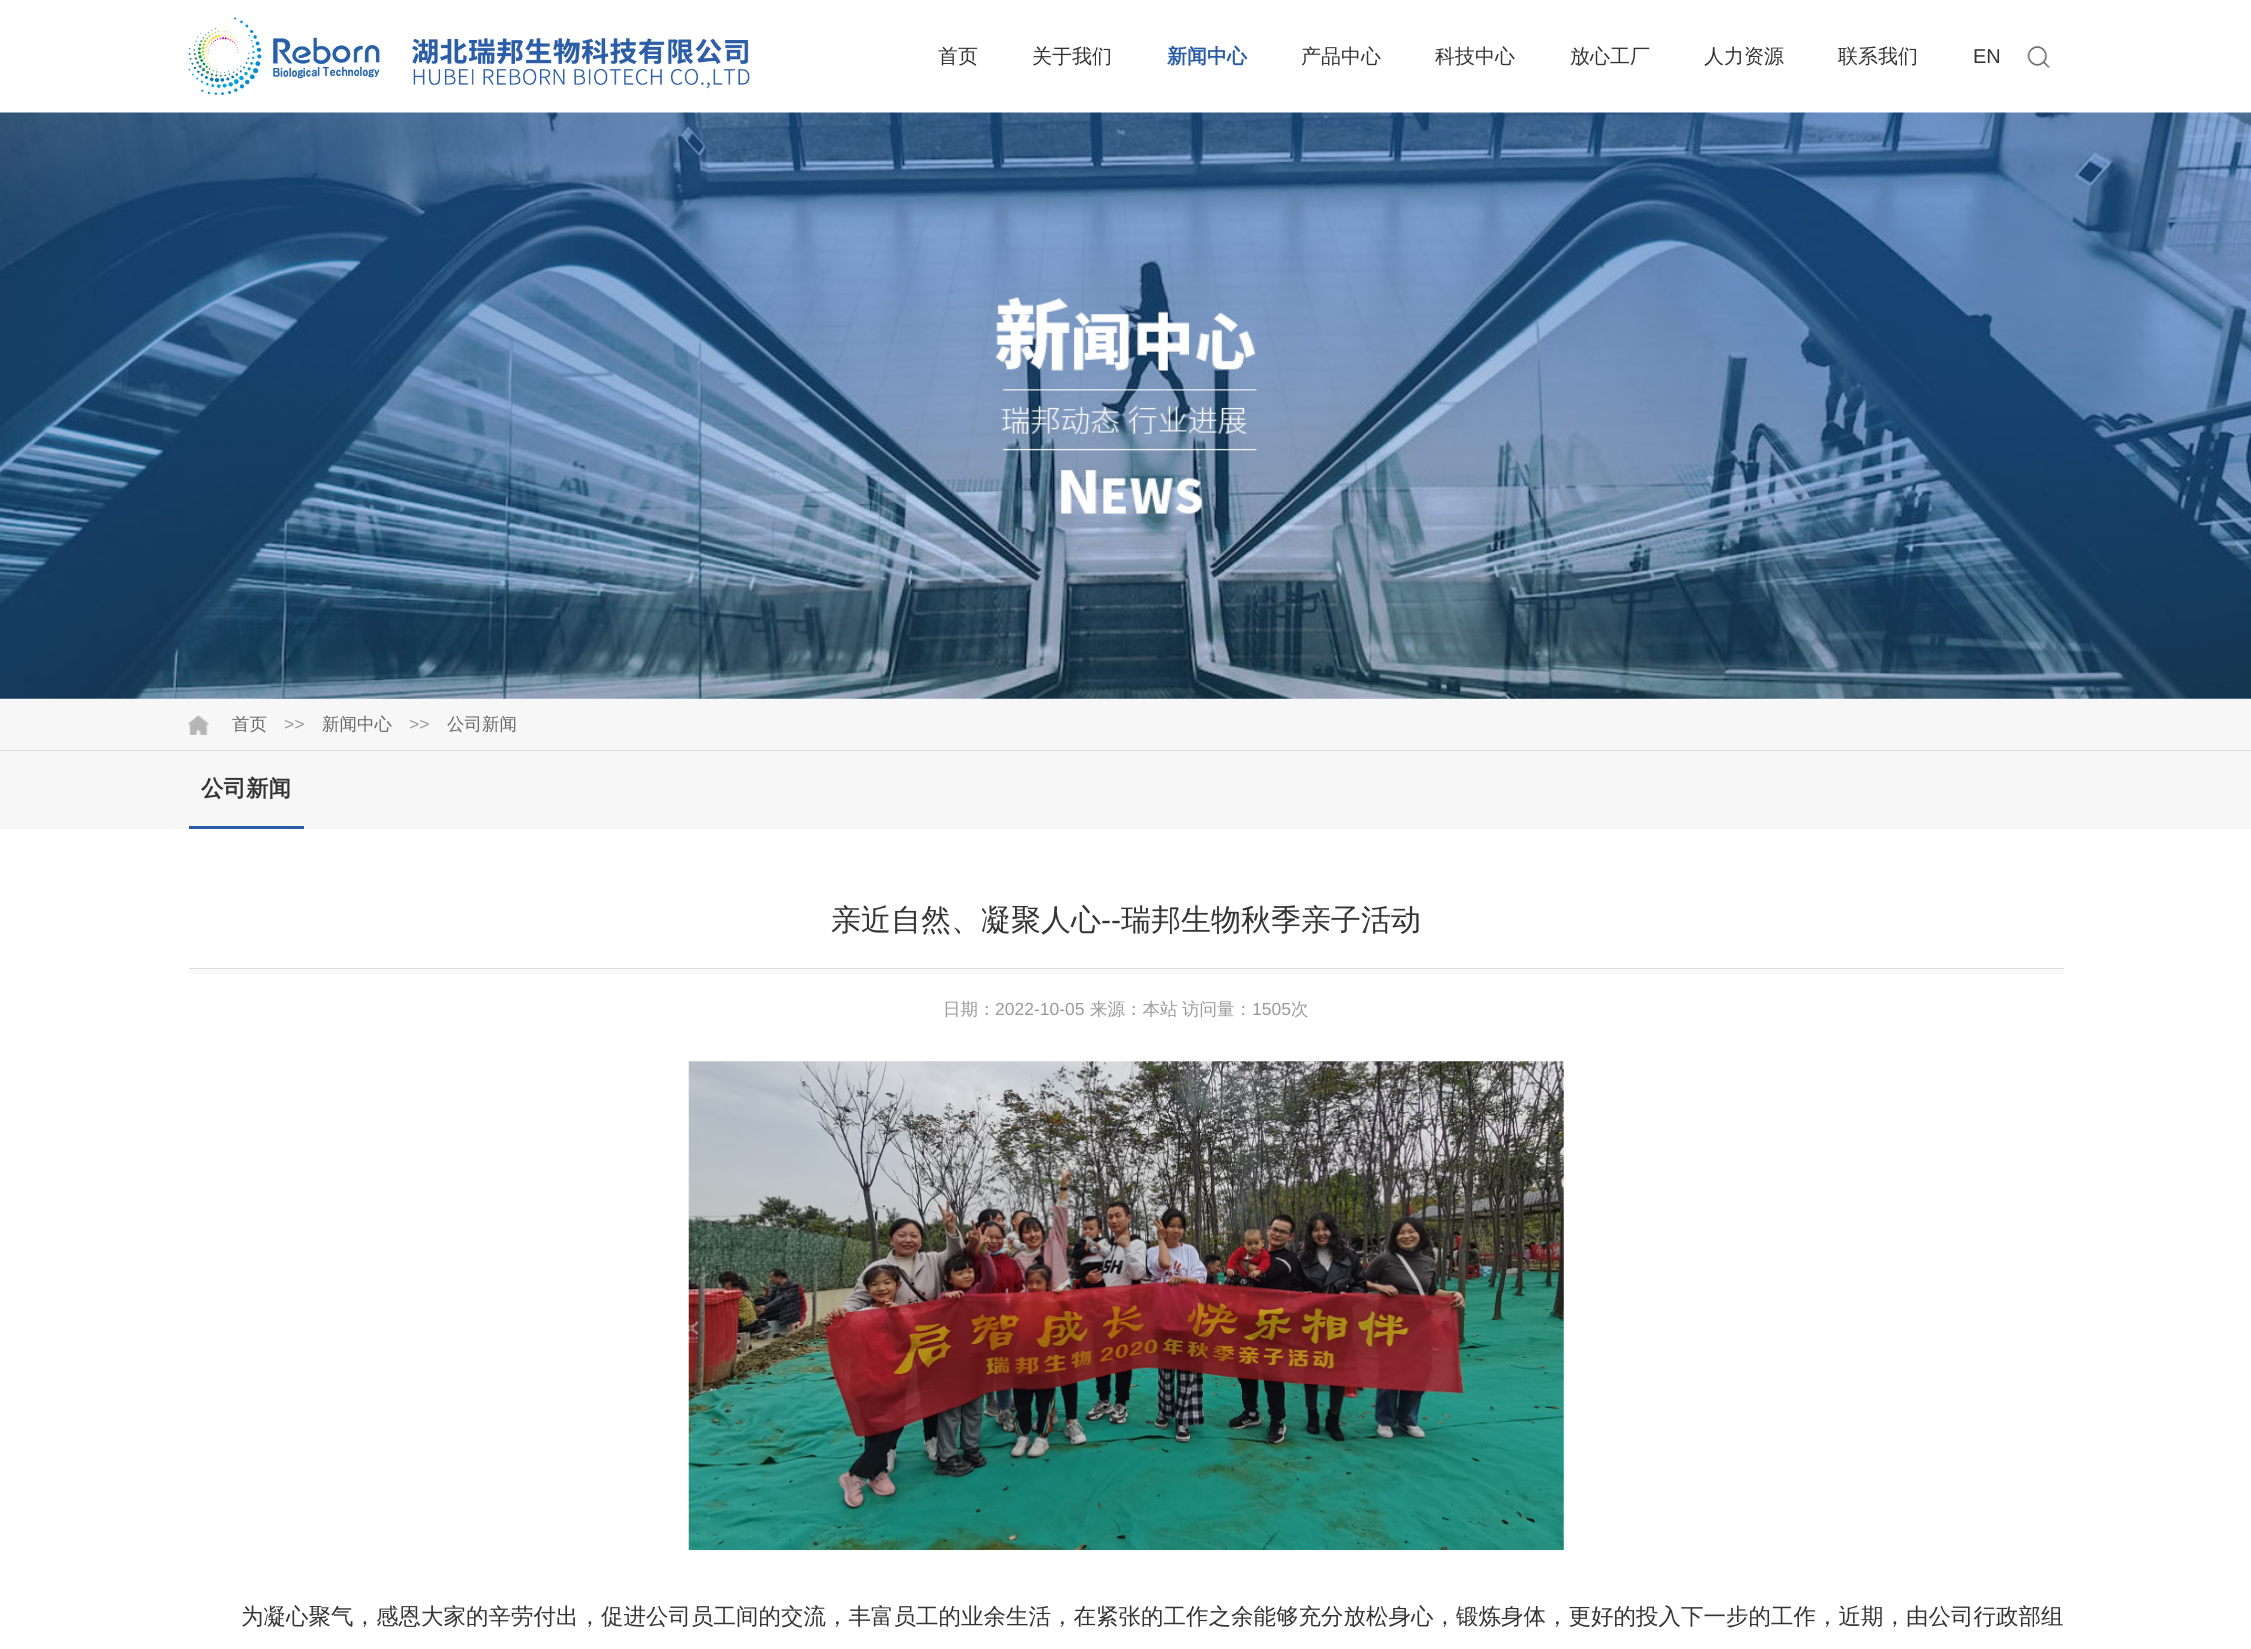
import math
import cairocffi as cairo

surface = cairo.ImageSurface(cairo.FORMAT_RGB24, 2251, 1649)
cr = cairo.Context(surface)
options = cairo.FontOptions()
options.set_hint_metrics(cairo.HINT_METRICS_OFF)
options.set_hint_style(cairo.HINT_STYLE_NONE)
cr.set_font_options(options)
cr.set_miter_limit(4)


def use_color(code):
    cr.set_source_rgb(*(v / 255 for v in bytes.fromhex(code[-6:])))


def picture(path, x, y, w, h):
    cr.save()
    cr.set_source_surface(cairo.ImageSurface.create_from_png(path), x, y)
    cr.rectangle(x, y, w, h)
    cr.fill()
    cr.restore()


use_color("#ffffff")
cr.paint()
picture("img1.png", 188, 17, 562, 78)
cr.select_font_face("WenQuanYi Zen Hei Medium")
cr.set_font_size(20)
use_color("#333333")
cr.move_to(938, 63)
cr.show_text("首页")
cr.move_to(1032, 63)
cr.show_text("关于我们")
cr.select_font_face("WenQuanYi Zen Hei", cairo.FONT_SLANT_NORMAL, cairo.FONT_WEIGHT_BOLD)
use_color("#285ca6")
cr.move_to(1167, 63)
cr.show_text("新闻中心")
cr.select_font_face("WenQuanYi Zen Hei Medium")
use_color("#333333")
cr.move_to(1301, 63)
cr.show_text("产品中心")
cr.move_to(1435, 63)
cr.show_text("科技中心")
cr.move_to(1570, 63)
cr.show_text("放心工厂")
cr.move_to(1704, 63)
cr.show_text("人力资源")
cr.move_to(1838, 63)
cr.show_text("联系我们")
cr.select_font_face("Liberation Sans")
cr.move_to(1973, 63)
cr.show_text("EN")
picture("img2.png", 2027, 46, 23, 22)
picture("img3.png", 0, 112, 2251, 587)
use_color("#f7f7f7")
cr.rectangle(0, 699, 2251, 130)
cr.fill()
use_color("#dddddd")
cr.rectangle(0, 750, 2251, 1)
cr.fill()
picture("img4.png", 188, 715, 21, 20)
cr.select_font_face("WenQuanYi Zen Hei Medium")
cr.set_font_size(17.5)
use_color("#666666")
cr.move_to(232, 730)
cr.show_text("首页")
cr.select_font_face("Liberation Sans")
use_color("#999999")
cr.move_to(284, 730)
cr.show_text(">>")
cr.select_font_face("WenQuanYi Zen Hei Medium")
use_color("#666666")
cr.move_to(322, 730)
cr.show_text("新闻中心")
cr.select_font_face("Liberation Sans")
use_color("#999999")
cr.move_to(409, 730)
cr.show_text(">>")
cr.select_font_face("WenQuanYi Zen Hei Medium")
use_color("#666666")
cr.move_to(447, 730)
cr.show_text("公司新闻")
use_color("#285ca6")
cr.rectangle(189, 826, 115, 3)
cr.fill()
cr.select_font_face("WenQuanYi Zen Hei", cairo.FONT_SLANT_NORMAL, cairo.FONT_WEIGHT_BOLD)
cr.set_font_size(22.5)
use_color("#333333")
cr.move_to(201, 796)
cr.show_text("公司新闻")
use_color("#f9f9f9")
cr.new_path()
cr.move_to(189, 969)
cr.line_to(189, 974)
cr.line_to(2064, 974)
cr.line_to(2064, 903)
cr.line_to(2064, 969)
cr.close_path()
cr.fill()
use_color("#dddddd")
cr.rectangle(189, 968, 1875, 1)
cr.fill()
cr.select_font_face("WenQuanYi Zen Hei Medium")
cr.set_font_size(30)
use_color("#333333")
cr.move_to(831, 930)
cr.show_text("亲近自然、凝聚人心")
cr.select_font_face("Liberation Sans")
cr.move_to(1101, 930)
cr.show_text("--")
cr.select_font_face("WenQuanYi Zen Hei Medium")
cr.move_to(1121, 930)
cr.show_text("瑞邦生物秋季亲子活动")
cr.set_font_size(17.5)
use_color("#999999")
cr.move_to(943, 1015)
cr.show_text("日期：")
cr.select_font_face("Liberation Sans")
cr.move_to(995, 1015)
cr.show_text("2022-10-05")
cr.select_font_face("WenQuanYi Zen Hei Medium")
cr.move_to(1090, 1015)
cr.show_text("来源：本站")
cr.move_to(1182, 1015)
cr.show_text("访问量：")
cr.select_font_face("Liberation Sans")
cr.move_to(1252, 1015)
cr.show_text("1505")
cr.select_font_face("WenQuanYi Zen Hei Medium")
cr.move_to(1291, 1015)
cr.show_text("次")
picture("img5.png", 688, 1061, 876, 489)
cr.set_font_size(22.5)
use_color("#333333")
cr.move_to(241, 1624)
cr.show_text("为凝心聚气，感恩大家的辛劳付出，促进公司员工间的交流，丰富员工的业余生活，在紧张的工作之余能够充分放松身心，锻炼身体，更好的投入下一步的工作，近期，由公司行政部组")
surface.write_to_png("result.png")
